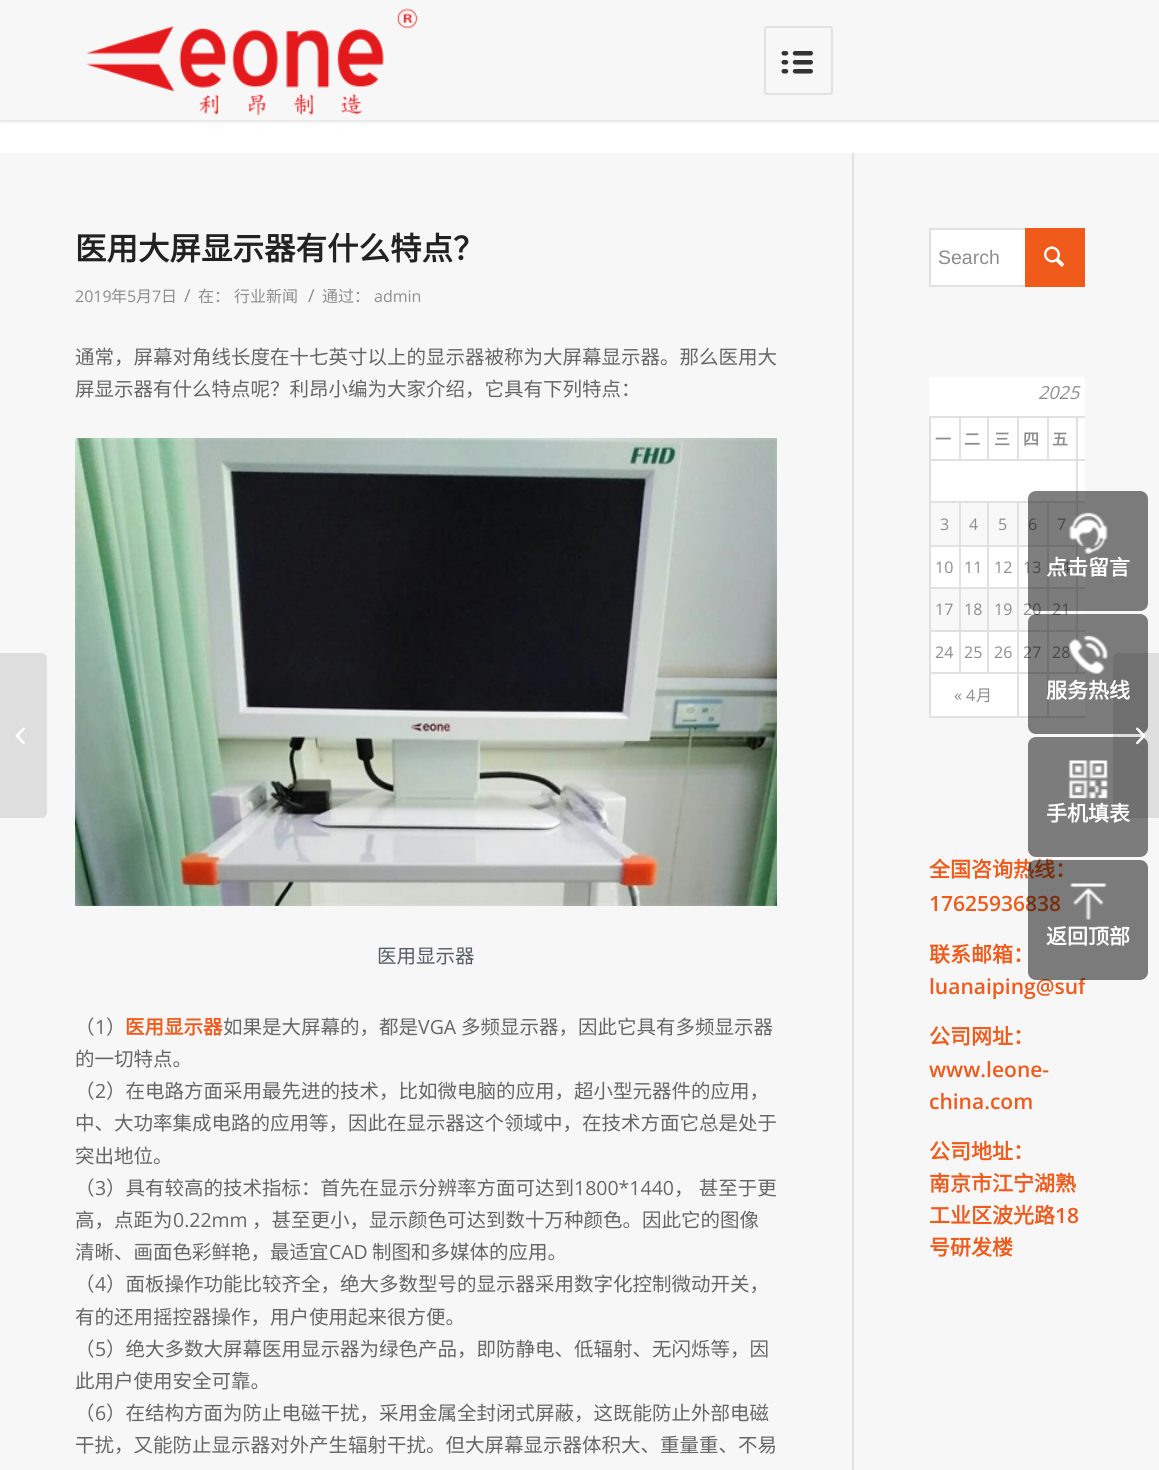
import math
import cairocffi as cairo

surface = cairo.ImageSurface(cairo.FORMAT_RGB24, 1159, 1470)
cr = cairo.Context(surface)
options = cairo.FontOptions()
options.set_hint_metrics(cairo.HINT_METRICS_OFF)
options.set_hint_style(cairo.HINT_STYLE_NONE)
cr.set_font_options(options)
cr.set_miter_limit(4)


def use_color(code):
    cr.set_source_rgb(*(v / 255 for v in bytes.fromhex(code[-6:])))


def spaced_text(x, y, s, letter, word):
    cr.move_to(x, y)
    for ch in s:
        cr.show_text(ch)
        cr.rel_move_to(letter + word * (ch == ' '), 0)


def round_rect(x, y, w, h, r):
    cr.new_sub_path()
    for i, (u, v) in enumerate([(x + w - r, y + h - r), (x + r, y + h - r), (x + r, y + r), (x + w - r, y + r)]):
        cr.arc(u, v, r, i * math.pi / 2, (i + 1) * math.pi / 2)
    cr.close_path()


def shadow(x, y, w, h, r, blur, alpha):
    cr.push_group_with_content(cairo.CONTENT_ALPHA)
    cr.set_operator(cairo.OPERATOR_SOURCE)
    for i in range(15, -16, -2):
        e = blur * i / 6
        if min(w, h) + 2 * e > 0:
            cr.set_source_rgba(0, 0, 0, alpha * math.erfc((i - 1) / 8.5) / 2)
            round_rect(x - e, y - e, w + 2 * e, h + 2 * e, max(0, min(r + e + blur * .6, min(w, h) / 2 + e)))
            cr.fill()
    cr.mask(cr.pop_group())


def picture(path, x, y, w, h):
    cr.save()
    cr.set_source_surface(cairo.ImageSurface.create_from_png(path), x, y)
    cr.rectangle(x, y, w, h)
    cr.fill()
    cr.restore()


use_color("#f7f7f7")
cr.paint()
use_color("#ffffff")
cr.rectangle(0, 120, 1159, 33)
cr.fill()
use_color("#000000")
shadow(-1, -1, 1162, 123, 0, 1.5, 0.1)
use_color("#f7f7f7")
cr.rectangle(0, 0, 1159, 120)
cr.fill()
picture("img1.png", 86, 8, 332, 108)
round_rect(765, 27, 67, 67, 2)
use_color("#e1e1e1")
cr.stroke()
picture("img2.png", 781, 51, 32, 23)
cr.rectangle(852, 153, 2, 1317)
cr.fill()
cr.select_font_face("Noto Sans CJK SC", cairo.FONT_SLANT_NORMAL, cairo.FONT_WEIGHT_BOLD)
cr.set_font_size(31.5)
use_color("#222222")
cr.move_to(75, 260)
cr.show_text("医用大屏显示器有什么特点？")
cr.select_font_face("Open Sans")
cr.set_font_size(16)
use_color("#8d8d8d")
cr.move_to(75, 302)
cr.show_text("2019")
cr.select_font_face("Noto Sans CJK SC")
cr.move_to(111, 302)
cr.show_text("年")
cr.select_font_face("Open Sans")
cr.move_to(127, 302)
cr.show_text("5")
cr.select_font_face("Noto Sans CJK SC")
cr.move_to(136, 302)
cr.show_text("月")
cr.select_font_face("Open Sans")
cr.move_to(152, 302)
cr.show_text("7")
cr.select_font_face("Noto Sans CJK SC")
cr.move_to(161, 302)
cr.show_text("日")
cr.select_font_face("Open Sans")
cr.set_font_size(18)
cr.move_to(184, 302)
cr.show_text("/")
cr.select_font_face("Noto Sans CJK SC")
cr.set_font_size(16)
cr.move_to(198, 302)
cr.show_text("在：")
cr.move_to(234, 302)
cr.show_text("行业新闻")
cr.select_font_face("Open Sans")
cr.set_font_size(18)
cr.move_to(308, 302)
cr.show_text("/")
cr.select_font_face("Noto Sans CJK SC")
cr.set_font_size(16)
cr.move_to(322, 302)
cr.show_text("通过：")
cr.select_font_face("Open Sans")
cr.move_to(374, 302)
cr.show_text("admin")
cr.select_font_face("Noto Sans CJK SC")
cr.set_font_size(19.5)
use_color("#666666")
cr.move_to(75, 364)
cr.show_text("通常，屏幕对角线长度在十七英寸以上的显示器被称为大屏幕显示器。那么医用大")
cr.move_to(75, 396)
cr.show_text("屏显示器有什么特点呢？利昂小编为大家介绍，它具有下列特点：")
picture("img3.png", 75, 438, 702, 468)
use_color("#555d66")
cr.move_to(377, 963)
cr.show_text("医用显示器")
use_color("#666666")
cr.move_to(75, 1034)
cr.show_text("（")
cr.select_font_face("Open Sans")
cr.move_to(95, 1034)
cr.show_text("1")
cr.select_font_face("Noto Sans CJK SC")
cr.move_to(106, 1034)
cr.show_text("）")
cr.select_font_face("Noto Sans CJK SC", cairo.FONT_SLANT_NORMAL, cairo.FONT_WEIGHT_BOLD)
use_color("#f05a1a")
cr.move_to(125, 1034)
cr.show_text("医用显示器")
cr.select_font_face("Noto Sans CJK SC")
use_color("#666666")
cr.move_to(223, 1034)
cr.show_text("如果是大屏幕的，都是")
cr.select_font_face("Open Sans")
cr.move_to(418, 1034)
cr.show_text("VGA")
cr.select_font_face("Noto Sans CJK SC")
cr.move_to(461, 1034)
cr.show_text("多频显示器，因此它具有多频显示器")
cr.move_to(75, 1066)
cr.show_text("的一切特点。")
cr.move_to(75, 1098)
cr.show_text("（")
cr.select_font_face("Open Sans")
cr.move_to(95, 1098)
cr.show_text("2")
cr.select_font_face("Noto Sans CJK SC")
cr.move_to(106, 1098)
cr.show_text("）在电路方面采用最先进的技术，比如微电脑的应用，超小型元器件的应用，")
cr.move_to(75, 1130)
cr.show_text("中、大功率集成电路的应用等，因此在显示器这个领域中，在技术方面它总是处于")
cr.move_to(75, 1163)
cr.show_text("突出地位。")
cr.move_to(75, 1195)
cr.show_text("（")
cr.select_font_face("Open Sans")
cr.move_to(95, 1195)
cr.show_text("3")
cr.select_font_face("Noto Sans CJK SC")
cr.move_to(106, 1195)
cr.show_text("）具有较高的技术指标：首先在显示分辨率方面可达到")
cr.select_font_face("Open Sans")
cr.move_to(574, 1195)
cr.show_text("1800*1440")
cr.select_font_face("Noto Sans CJK SC")
spaced_text(674, 1195, "， 甚至于更", 0, 1)
cr.move_to(75, 1227)
cr.show_text("高，点距为")
cr.select_font_face("Open Sans")
cr.move_to(173, 1227)
cr.show_text("0.22mm")
cr.select_font_face("Noto Sans CJK SC")
cr.move_to(252, 1227)
cr.show_text("，甚至更小，显示颜色可达到数十万种颜色。因此它的图像")
cr.move_to(75, 1259)
cr.show_text("清晰、画面色彩鲜艳，最适宜")
cr.select_font_face("Open Sans")
cr.move_to(329, 1259)
cr.show_text("CAD")
cr.select_font_face("Noto Sans CJK SC")
cr.move_to(372, 1259)
cr.show_text("制图和多媒体的应用。")
cr.move_to(75, 1291)
cr.show_text("（")
cr.select_font_face("Open Sans")
cr.move_to(95, 1291)
cr.show_text("4")
cr.select_font_face("Noto Sans CJK SC")
cr.move_to(106, 1291)
cr.show_text("）面板操作功能比较齐全，绝大多数型号的显示器采用数字化控制微动开关，")
cr.move_to(75, 1324)
cr.show_text("有的还用摇控器操作，用户使用起来很方便。")
cr.move_to(75, 1356)
cr.show_text("（")
cr.select_font_face("Open Sans")
cr.move_to(95, 1356)
cr.show_text("5")
cr.select_font_face("Noto Sans CJK SC")
cr.move_to(106, 1356)
cr.show_text("）绝大多数大屏幕医用显示器为绿色产品，即防静电、低辐射、无闪烁等，因")
cr.move_to(75, 1388)
cr.show_text("此用户使用安全可靠。")
cr.move_to(75, 1420)
cr.show_text("（")
cr.select_font_face("Open Sans")
cr.move_to(95, 1420)
cr.show_text("6")
cr.select_font_face("Noto Sans CJK SC")
cr.move_to(106, 1420)
cr.show_text("）在结构方面为防止电磁干扰，采用金属全封闭式屏蔽，这既能防止外部电磁")
cr.move_to(75, 1452)
cr.show_text("干扰，又能防止显示器对外产生辐射干扰。但大屏幕显示器体积大、重量重、不易")
use_color("#ffffff")
cr.rectangle(931, 230, 94, 55)
cr.fill()
cr.rectangle(930, 229, 154, 57)
use_color("#e1e1e1")
cr.stroke()
cr.select_font_face("Liberation Sans")
use_color("#8d8d8d")
cr.move_to(938, 264)
cr.show_text("Search")
use_color("#f05a1a")
cr.rectangle(1025, 228, 60, 59)
cr.fill()
picture("img4.png", 1044, 246, 21, 21)
use_color("#ffffff")
cr.rectangle(929, 377, 156, 339)
cr.fill()
cr.select_font_face("Open Sans", cairo.FONT_SLANT_ITALIC)
cr.set_font_size(18)
use_color("#8d8d8d")
cr.move_to(1038, 399)
cr.show_text("2025")
use_color("#e1e1e1")
cr.rectangle(929, 416, 156, 2)
cr.fill()
cr.rectangle(929, 459, 156, 2)
cr.fill()
cr.rectangle(959, 416, 2, 45)
cr.fill()
use_color("#f8f8f8")
cr.rectangle(931, 503, 154, 42)
cr.fill()
cr.rectangle(931, 589, 154, 41)
cr.fill()
use_color("#e1e1e1")
cr.rectangle(1076, 672, 9, 2)
cr.fill()
cr.rectangle(1076, 630, 2, 44)
cr.fill()
cr.rectangle(1076, 630, 9, 2)
cr.fill()
cr.rectangle(1076, 587, 2, 45)
cr.fill()
cr.rectangle(1076, 587, 9, 2)
cr.fill()
cr.rectangle(1076, 545, 2, 43)
cr.fill()
cr.rectangle(1076, 545, 9, 2)
cr.fill()
cr.rectangle(1076, 501, 2, 45)
cr.fill()
cr.rectangle(1076, 501, 9, 2)
cr.fill()
cr.rectangle(1076, 459, 2, 44)
cr.fill()
cr.rectangle(1047, 672, 30, 2)
cr.fill()
cr.rectangle(1047, 630, 2, 44)
cr.fill()
cr.rectangle(1047, 630, 30, 2)
cr.fill()
cr.rectangle(1047, 587, 2, 45)
cr.fill()
cr.rectangle(1047, 587, 30, 2)
cr.fill()
cr.rectangle(1047, 545, 2, 43)
cr.fill()
cr.rectangle(1047, 545, 30, 2)
cr.fill()
cr.rectangle(1047, 501, 2, 45)
cr.fill()
cr.rectangle(1017, 672, 32, 2)
cr.fill()
cr.rectangle(1017, 630, 2, 44)
cr.fill()
cr.rectangle(1017, 630, 32, 2)
cr.fill()
cr.rectangle(1017, 587, 2, 45)
cr.fill()
cr.rectangle(1017, 587, 32, 2)
cr.fill()
cr.rectangle(1017, 545, 2, 43)
cr.fill()
cr.rectangle(1017, 545, 32, 2)
cr.fill()
cr.rectangle(1017, 501, 2, 45)
cr.fill()
cr.rectangle(987, 672, 32, 2)
cr.fill()
cr.rectangle(987, 630, 2, 44)
cr.fill()
cr.rectangle(987, 630, 32, 2)
cr.fill()
cr.rectangle(987, 587, 2, 45)
cr.fill()
cr.rectangle(987, 587, 32, 2)
cr.fill()
cr.rectangle(987, 545, 2, 43)
cr.fill()
cr.rectangle(987, 545, 32, 2)
cr.fill()
cr.rectangle(987, 501, 2, 45)
cr.fill()
cr.rectangle(959, 672, 30, 2)
cr.fill()
cr.rectangle(959, 630, 2, 44)
cr.fill()
cr.rectangle(959, 630, 30, 2)
cr.fill()
cr.rectangle(959, 587, 2, 45)
cr.fill()
cr.rectangle(959, 587, 30, 2)
cr.fill()
cr.rectangle(959, 545, 2, 43)
cr.fill()
cr.rectangle(959, 545, 30, 2)
cr.fill()
cr.rectangle(959, 501, 2, 45)
cr.fill()
cr.rectangle(929, 672, 31, 2)
cr.fill()
cr.rectangle(929, 630, 2, 44)
cr.fill()
cr.rectangle(929, 630, 31, 2)
cr.fill()
cr.rectangle(929, 587, 2, 45)
cr.fill()
cr.rectangle(929, 587, 31, 2)
cr.fill()
cr.rectangle(929, 545, 2, 43)
cr.fill()
cr.rectangle(929, 545, 31, 2)
cr.fill()
cr.rectangle(929, 501, 2, 45)
cr.fill()
cr.rectangle(929, 501, 148, 2)
cr.fill()
cr.rectangle(929, 459, 2, 44)
cr.fill()
cr.rectangle(929, 416, 2, 45)
cr.fill()
cr.select_font_face("Noto Sans CJK SC", cairo.FONT_SLANT_NORMAL, cairo.FONT_WEIGHT_BOLD)
cr.set_font_size(16)
use_color("#8d8d8d")
spaced_text(935, 445, "一", 2, 0)
use_color("#e1e1e1")
cr.rectangle(987, 416, 2, 45)
cr.fill()
use_color("#8d8d8d")
spaced_text(964, 445, "二", 2, 0)
use_color("#e1e1e1")
cr.rectangle(1017, 416, 2, 45)
cr.fill()
use_color("#8d8d8d")
spaced_text(994, 445, "三", 2, 0)
use_color("#e1e1e1")
cr.rectangle(1047, 416, 2, 45)
cr.fill()
use_color("#8d8d8d")
spaced_text(1023, 445, "四", 2, 0)
use_color("#e1e1e1")
cr.rectangle(1076, 416, 2, 45)
cr.fill()
use_color("#8d8d8d")
spaced_text(1052, 445, "五", 2, 0)
cr.select_font_face("Open Sans")
cr.move_to(940, 530)
cr.show_text("3")
cr.move_to(969, 530)
cr.show_text("4")
cr.move_to(998, 530)
cr.show_text("5")
cr.move_to(1028, 530)
cr.show_text("6")
cr.move_to(1057, 530)
cr.show_text("7")
cr.move_to(935, 573)
cr.show_text("10")
cr.move_to(964, 573)
cr.show_text("11")
cr.move_to(994, 573)
cr.show_text("12")
cr.move_to(1023, 573)
cr.show_text("13")
cr.move_to(1052, 573)
cr.show_text("14")
cr.move_to(935, 615)
cr.show_text("17")
cr.move_to(964, 615)
cr.show_text("18")
cr.move_to(994, 615)
cr.show_text("19")
cr.move_to(1023, 615)
cr.show_text("20")
cr.move_to(1052, 615)
cr.show_text("21")
cr.move_to(935, 658)
cr.show_text("24")
cr.move_to(964, 658)
cr.show_text("25")
cr.move_to(994, 658)
cr.show_text("26")
cr.move_to(1023, 658)
cr.show_text("27")
cr.move_to(1052, 658)
cr.show_text("28")
use_color("#e1e1e1")
cr.rectangle(1047, 716, 38, 2)
cr.fill()
cr.rectangle(1047, 672, 2, 45)
cr.fill()
cr.rectangle(1017, 716, 32, 2)
cr.fill()
cr.rectangle(1017, 672, 2, 45)
cr.fill()
cr.rectangle(929, 716, 90, 2)
cr.fill()
cr.rectangle(929, 672, 2, 45)
cr.fill()
use_color("#8d8d8d")
cr.move_to(954, 701)
cr.show_text("« 4")
cr.select_font_face("Noto Sans CJK SC")
cr.move_to(976, 701)
cr.show_text("月")
cr.select_font_face("Noto Sans CJK SC", cairo.FONT_SLANT_NORMAL, cairo.FONT_WEIGHT_BOLD)
cr.set_font_size(21)
use_color("#f05a1a")
cr.move_to(929, 877)
cr.show_text("全国咨询热线：")
cr.select_font_face("Open Sans SemiBold")
cr.move_to(929, 911)
cr.show_text("17625936838")
cr.select_font_face("Noto Sans CJK SC", cairo.FONT_SLANT_NORMAL, cairo.FONT_WEIGHT_BOLD)
cr.move_to(929, 962)
cr.show_text("联系邮箱：")
cr.save()
cr.rectangle(854, 153, 231, 1248)
cr.clip()
cr.select_font_face("Open Sans SemiBold")
cr.move_to(929, 994)
cr.show_text("luanaiping@suf")
cr.restore()
cr.move_to(929, 1044)
cr.show_text("公司网址：")
cr.select_font_face("Open Sans SemiBold")
cr.move_to(929, 1077)
cr.show_text("www.leone-")
cr.move_to(929, 1109)
cr.show_text("china.com")
cr.select_font_face("Noto Sans CJK SC", cairo.FONT_SLANT_NORMAL, cairo.FONT_WEIGHT_BOLD)
cr.move_to(929, 1159)
cr.show_text("公司地址：")
cr.move_to(929, 1191)
cr.show_text("南京市江宁湖熟")
cr.move_to(929, 1223)
cr.show_text("工业区波光路")
cr.select_font_face("Open Sans SemiBold")
cr.move_to(1055, 1223)
cr.show_text("18")
cr.select_font_face("Noto Sans CJK SC", cairo.FONT_SLANT_NORMAL, cairo.FONT_WEIGHT_BOLD)
cr.move_to(929, 1255)
cr.show_text("号研发楼")
use_color("#dedede")
cr.new_path()
cr.move_to(0, 653)
cr.line_to(41, 653)
cr.curve_to(44.5, 653, 47, 655.5, 47, 659)
cr.line_to(47, 812)
cr.curve_to(47, 815.5, 44.5, 818, 41, 818)
cr.line_to(0, 818)
cr.close_path()
cr.fill()
picture("img5.png", 15, 727, 10, 18)
cr.set_source_rgba(0, 0, 0, 0.5)
round_rect(1028, 614, 120, 120, 8)
cr.fill()
use_color("#7c7c7c")
round_rect(1028, 737, 120, 120, 8)
cr.fill()
cr.set_source_rgba(0, 0, 0, 0.1)
cr.new_path()
cr.move_to(1119, 653)
cr.line_to(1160, 653)
cr.line_to(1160, 818)
cr.line_to(1119, 818)
cr.curve_to(1115.5, 818, 1113, 815.5, 1113, 812)
cr.line_to(1113, 659)
cr.curve_to(1113, 655.5, 1115.5, 653, 1119, 653)
cr.close_path()
cr.fill()
picture("img6.png", 1136, 727, 10, 18)
cr.set_source_rgba(0, 0, 0, 0.5)
round_rect(1028, 491, 120, 120, 8)
cr.fill()
picture("img7.png", 1068, 512, 40, 42)
use_color("#ffffff")
cr.move_to(1046, 575)
cr.show_text("点击留言")
picture("img8.png", 1068, 635, 40, 39)
cr.move_to(1046, 698)
cr.show_text("服务热线")
picture("img9.png", 1068, 760, 40, 39)
cr.move_to(1046, 821)
cr.show_text("手机填表")
cr.set_source_rgba(0, 0, 0, 0.5)
round_rect(1028, 860, 120, 120, 8)
cr.fill()
picture("img10.png", 1070, 883, 37, 37)
use_color("#ffffff")
cr.move_to(1046, 944)
cr.show_text("返回顶部")
surface.write_to_png("result.png")
